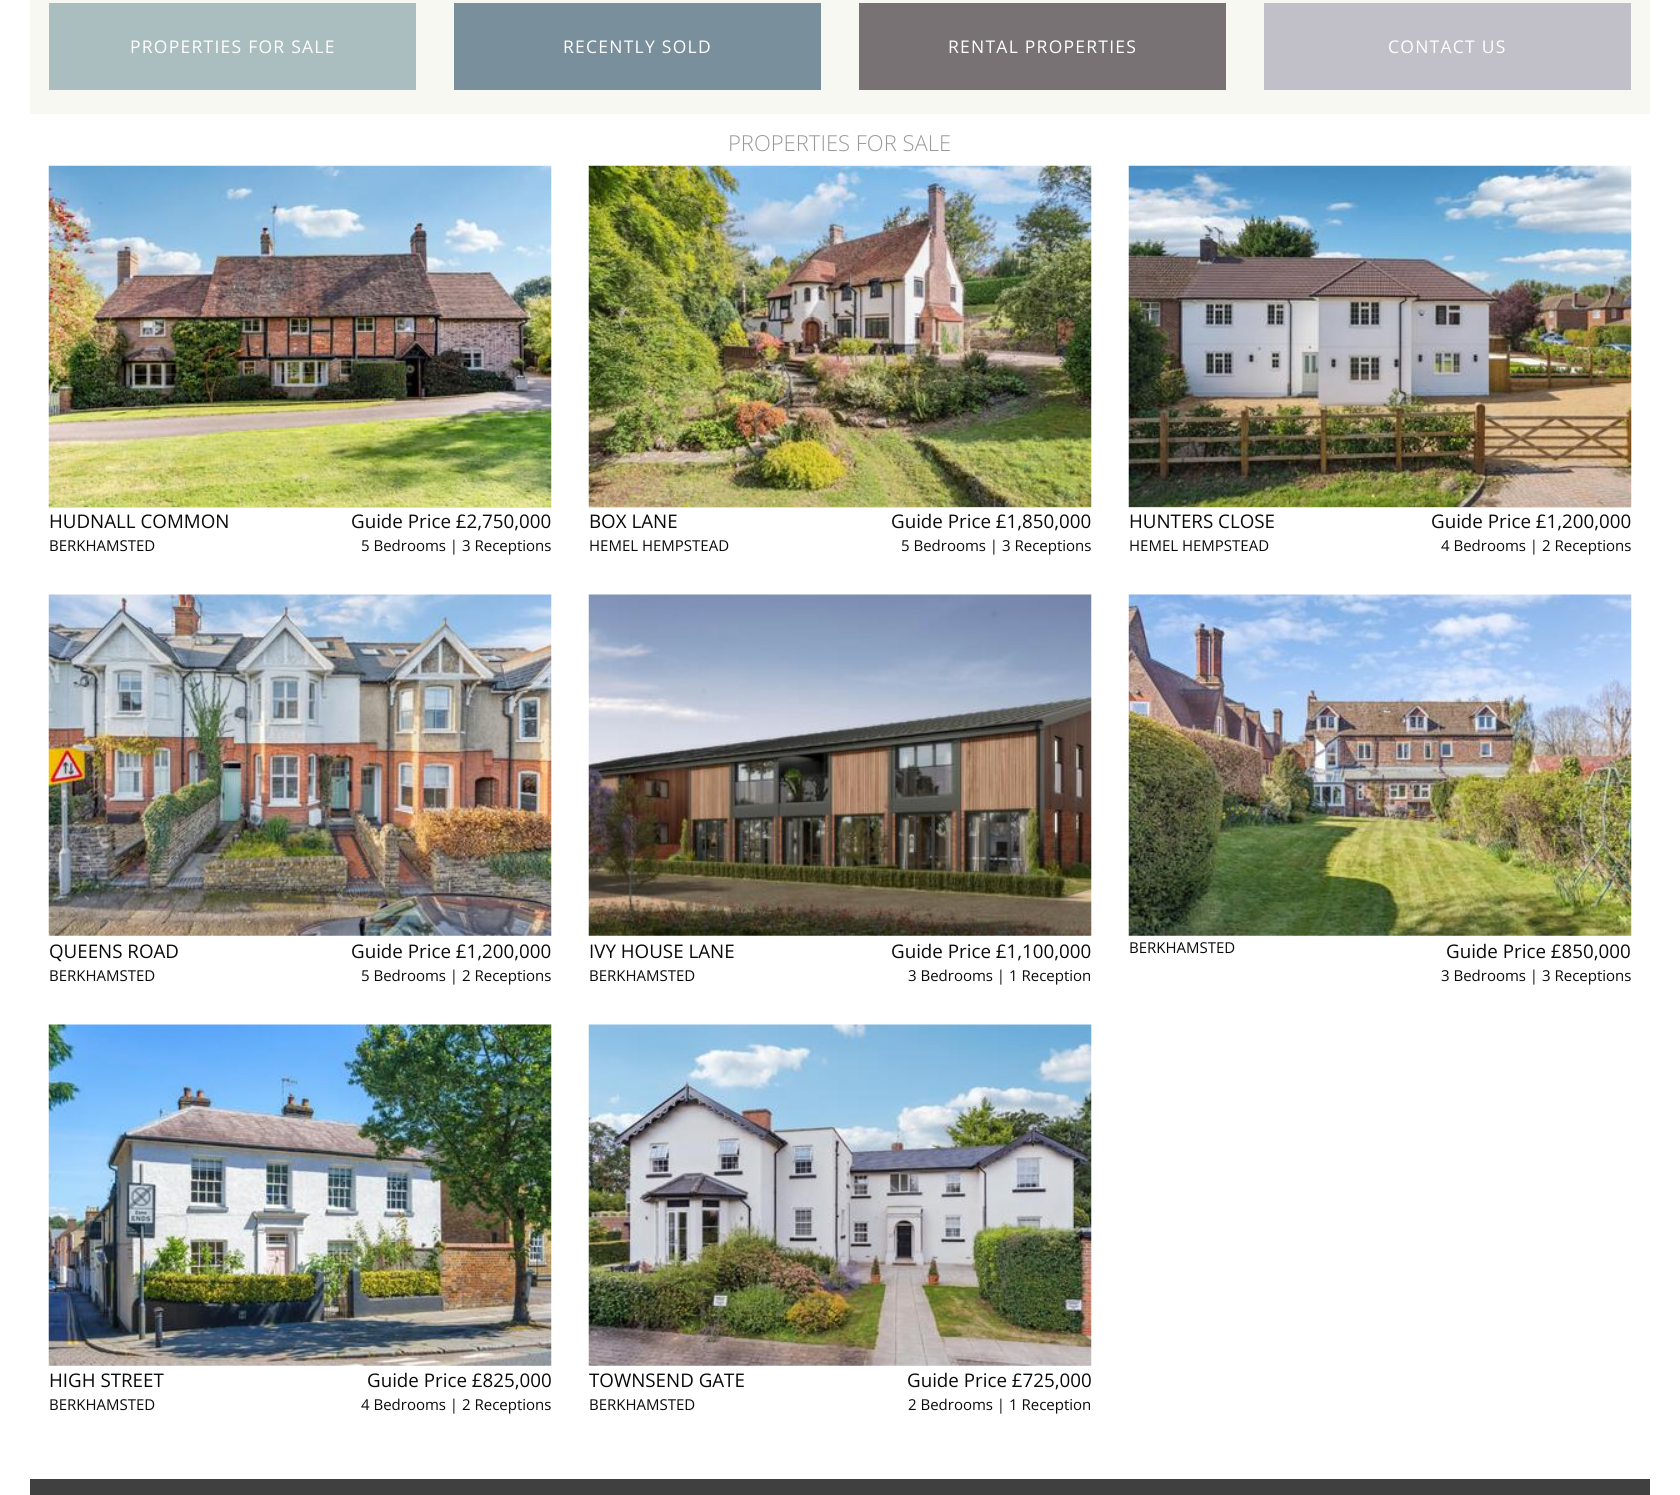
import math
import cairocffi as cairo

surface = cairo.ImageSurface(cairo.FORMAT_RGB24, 1680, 1495)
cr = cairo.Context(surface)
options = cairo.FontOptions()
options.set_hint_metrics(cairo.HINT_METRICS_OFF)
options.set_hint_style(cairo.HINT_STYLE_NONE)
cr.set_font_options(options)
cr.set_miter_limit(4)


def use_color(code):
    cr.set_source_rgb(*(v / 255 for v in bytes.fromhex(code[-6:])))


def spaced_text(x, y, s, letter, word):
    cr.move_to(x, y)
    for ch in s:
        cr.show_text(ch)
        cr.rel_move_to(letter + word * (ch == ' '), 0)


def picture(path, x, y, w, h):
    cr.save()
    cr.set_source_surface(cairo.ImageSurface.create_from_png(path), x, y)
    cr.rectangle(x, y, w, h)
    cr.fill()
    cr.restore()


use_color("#ffffff")
cr.paint()
use_color("#f8f8f3")
cr.rectangle(30, 0, 1620, 114)
cr.fill()
use_color("#aabebf")
cr.rectangle(49, 3, 367, 87)
cr.fill()
cr.select_font_face("Open Sans")
cr.set_font_size(17.5)
use_color("#ffffff")
spaced_text(130, 53, "PROPERTIES FOR SALE", 1.25, 0)
use_color("#798f9b")
cr.rectangle(454, 3, 367, 87)
cr.fill()
use_color("#ffffff")
spaced_text(563, 53, "RECENTLY SOLD", 1.25, 0)
use_color("#787274")
cr.rectangle(859, 3, 367, 87)
cr.fill()
use_color("#ffffff")
spaced_text(948, 53, "RENTAL PROPERTIES", 1.25, 0)
use_color("#c1bfc7")
cr.rectangle(1264, 3, 367, 87)
cr.fill()
use_color("#ffffff")
spaced_text(1388, 53, "CONTACT US", 1.25, 0)
cr.select_font_face("Open Sans Light")
cr.set_font_size(22)
use_color("#999999")
cr.move_to(728, 151)
cr.show_text("PROPERTIES FOR SALE")
use_color("#e1e1d5")
cr.rectangle(49, 507, 502, 1)
cr.fill()
picture("img1.png", 48, 165, 504, 342)
cr.select_font_face("Open Sans")
cr.set_font_size(18.75)
use_color("#0a0a0a")
cr.move_to(49, 528)
cr.show_text("HUDNALL COMMON")
cr.set_font_size(15)
cr.move_to(49, 551)
cr.show_text("BERKHAMSTED")
cr.set_font_size(18.75)
cr.move_to(351, 528)
cr.show_text("Guide Price £2,750,000")
cr.set_font_size(15)
cr.move_to(361, 551)
cr.show_text("5 Bedrooms | 3 Receptions")
use_color("#e1e1d5")
cr.rectangle(589, 507, 502, 1)
cr.fill()
picture("img2.png", 588, 165, 504, 342)
cr.set_font_size(18.75)
use_color("#0a0a0a")
cr.move_to(589, 528)
cr.show_text("BOX LANE")
cr.set_font_size(15)
cr.move_to(589, 551)
cr.show_text("HEMEL HEMPSTEAD")
cr.set_font_size(18.75)
cr.move_to(891, 528)
cr.show_text("Guide Price £1,850,000")
cr.set_font_size(15)
cr.move_to(901, 551)
cr.show_text("5 Bedrooms | 3 Receptions")
use_color("#e1e1d5")
cr.rectangle(1129, 507, 502, 1)
cr.fill()
picture("img3.png", 1128, 165, 504, 342)
cr.set_font_size(18.75)
use_color("#0a0a0a")
cr.move_to(1129, 528)
cr.show_text("HUNTERS CLOSE")
cr.set_font_size(15)
cr.move_to(1129, 551)
cr.show_text("HEMEL HEMPSTEAD")
cr.set_font_size(18.75)
cr.move_to(1431, 528)
cr.show_text("Guide Price £1,200,000")
cr.set_font_size(15)
cr.move_to(1441, 551)
cr.show_text("4 Bedrooms | 2 Receptions")
picture("img4.png", 48, 594, 504, 342)
cr.set_font_size(18.75)
cr.move_to(49, 958)
cr.show_text("QUEENS ROAD")
cr.set_font_size(15)
cr.move_to(49, 981)
cr.show_text("BERKHAMSTED")
cr.set_font_size(18.75)
cr.move_to(351, 958)
cr.show_text("Guide Price £1,200,000")
cr.set_font_size(15)
cr.move_to(361, 981)
cr.show_text("5 Bedrooms | 2 Receptions")
picture("img5.png", 588, 594, 504, 342)
cr.set_font_size(18.75)
cr.move_to(589, 958)
cr.show_text("IVY HOUSE LANE")
cr.set_font_size(15)
cr.move_to(589, 981)
cr.show_text("BERKHAMSTED")
cr.set_font_size(18.75)
cr.move_to(891, 958)
cr.show_text("Guide Price £1,100,000")
cr.set_font_size(15)
cr.move_to(908, 981)
cr.show_text("3 Bedrooms | 1 Reception")
picture("img6.png", 1128, 594, 504, 342)
cr.move_to(1129, 953)
cr.show_text("BERKHAMSTED")
cr.set_font_size(18.75)
cr.move_to(1446, 958)
cr.show_text("Guide Price £850,000")
cr.set_font_size(15)
cr.move_to(1441, 981)
cr.show_text("3 Bedrooms | 3 Receptions")
picture("img7.png", 48, 1024, 504, 342)
cr.set_font_size(18.75)
cr.move_to(49, 1387)
cr.show_text("HIGH STREET")
cr.set_font_size(15)
cr.move_to(49, 1410)
cr.show_text("BERKHAMSTED")
cr.set_font_size(18.75)
cr.move_to(367, 1387)
cr.show_text("Guide Price £825,000")
cr.set_font_size(15)
cr.move_to(361, 1410)
cr.show_text("4 Bedrooms | 2 Receptions")
picture("img8.png", 588, 1024, 504, 342)
cr.set_font_size(18.75)
cr.move_to(589, 1387)
cr.show_text("TOWNSEND GATE")
cr.set_font_size(15)
cr.move_to(589, 1410)
cr.show_text("BERKHAMSTED")
cr.set_font_size(18.75)
cr.move_to(907, 1387)
cr.show_text("Guide Price £725,000")
cr.set_font_size(15)
cr.move_to(908, 1410)
cr.show_text("2 Bedrooms | 1 Reception")
use_color("#404040")
cr.rectangle(30, 1479, 1620, 16)
cr.fill()
surface.write_to_png("result.png")
